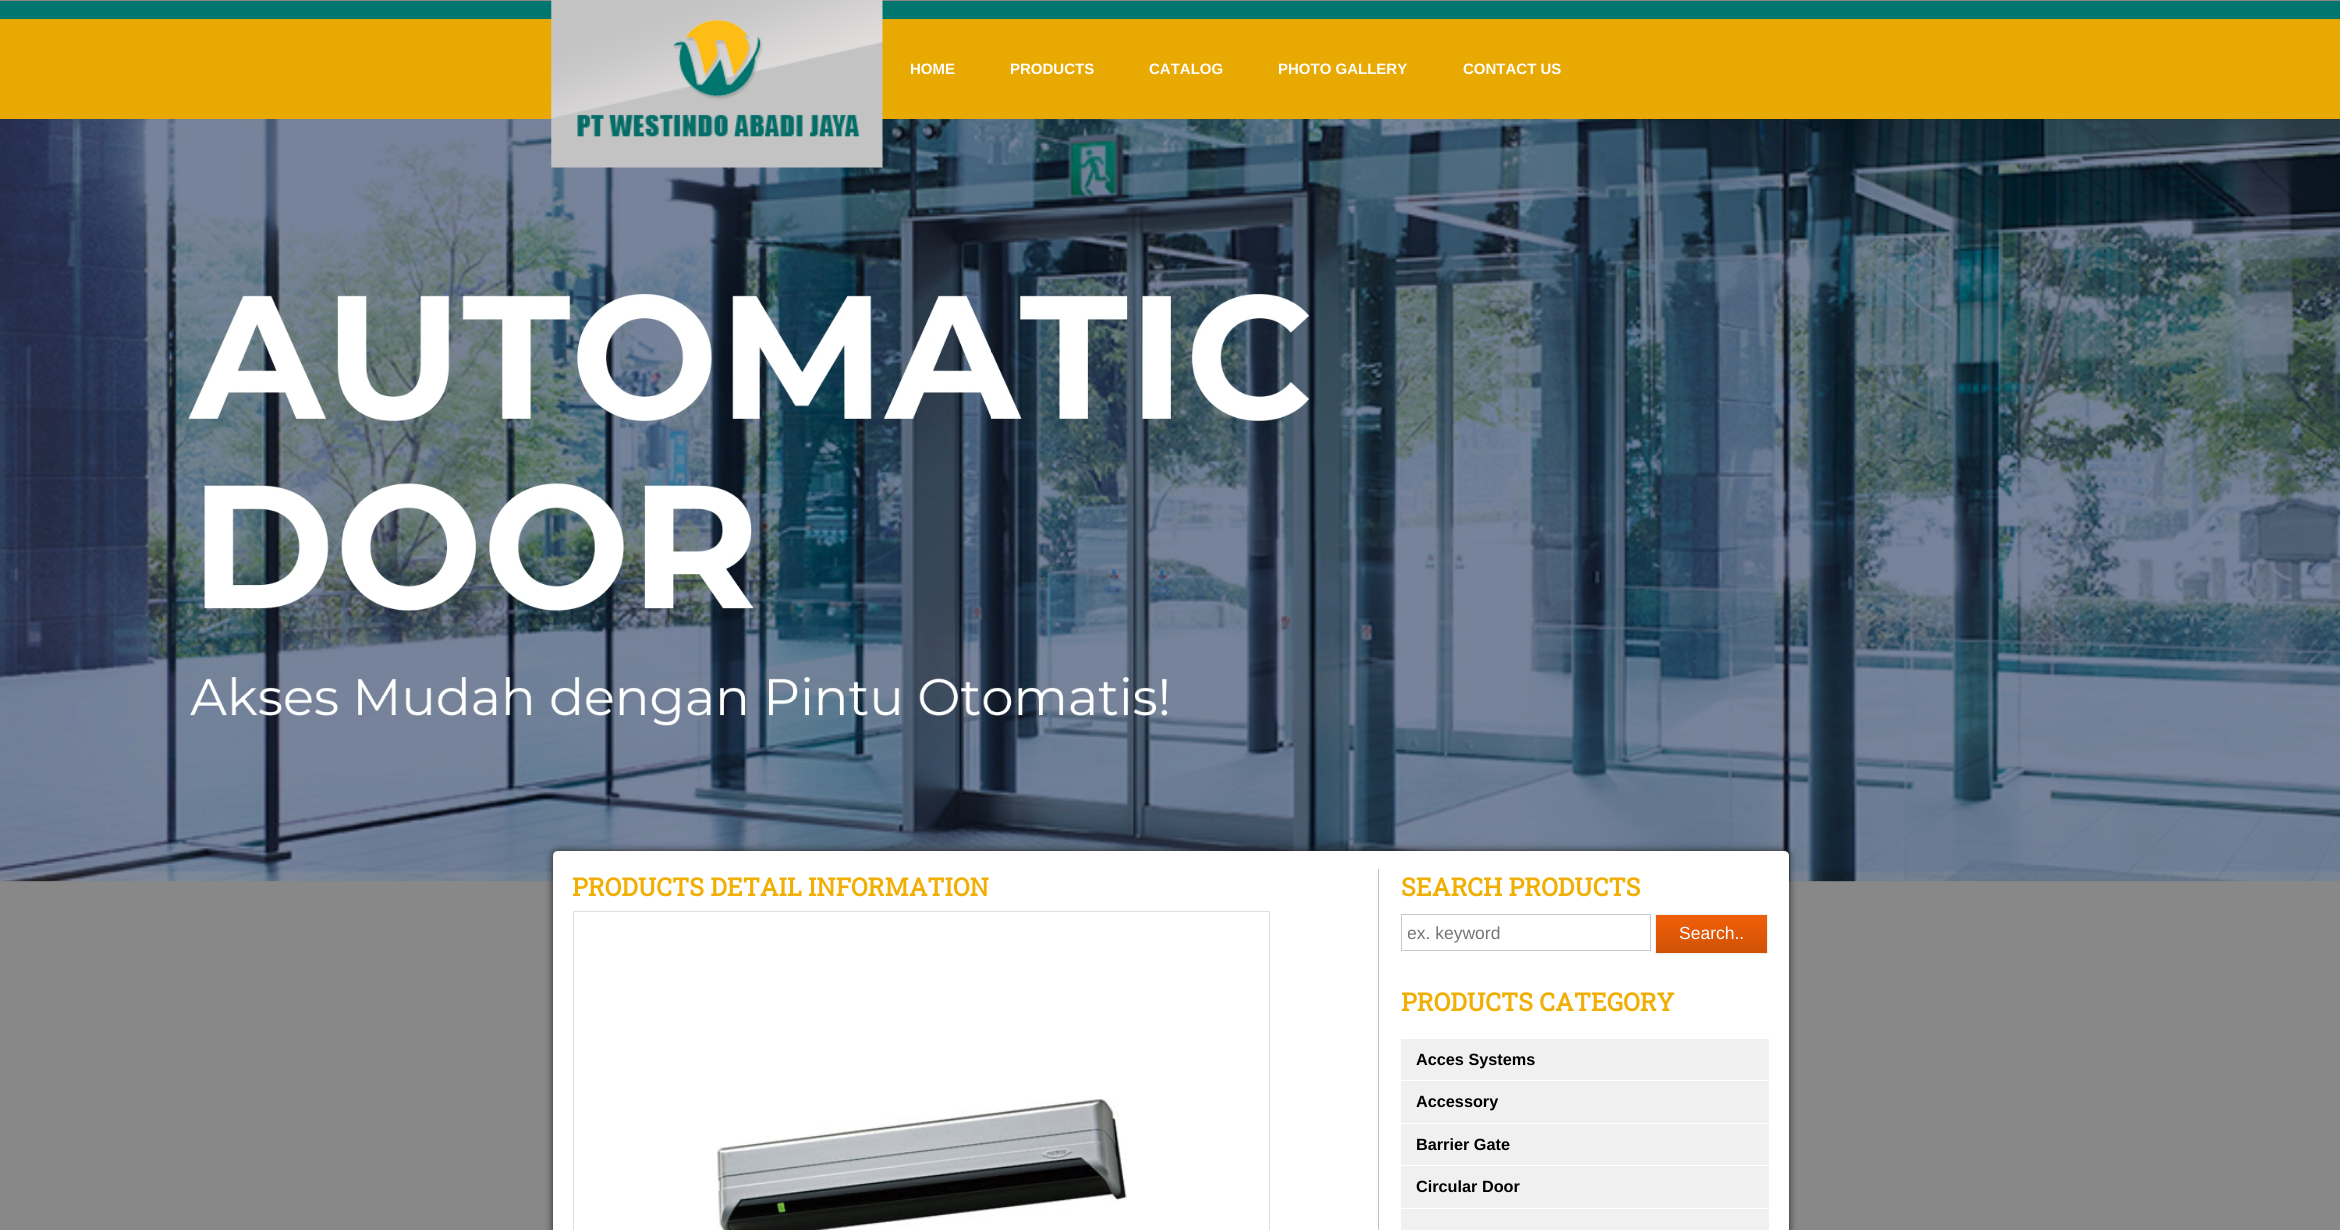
import math
import cairocffi as cairo

surface = cairo.ImageSurface(cairo.FORMAT_RGB24, 2340, 1230)
cr = cairo.Context(surface)
options = cairo.FontOptions()
options.set_hint_metrics(cairo.HINT_METRICS_OFF)
options.set_hint_style(cairo.HINT_STYLE_NONE)
cr.set_font_options(options)
cr.set_miter_limit(4)


def use_color(code):
    cr.set_source_rgb(*(v / 255 for v in bytes.fromhex(code[-6:])))


def round_rect(x, y, w, h, r):
    cr.new_sub_path()
    for i, (u, v) in enumerate([(x + w - r, y + h - r), (x + r, y + h - r), (x + r, y + r), (x + w - r, y + r)]):
        cr.arc(u, v, r, i * math.pi / 2, (i + 1) * math.pi / 2)
    cr.close_path()


def shadow(x, y, w, h, r, blur, alpha):
    cr.push_group_with_content(cairo.CONTENT_ALPHA)
    cr.set_operator(cairo.OPERATOR_SOURCE)
    for i in range(15, -16, -2):
        e = blur * i / 6
        if min(w, h) + 2 * e > 0:
            cr.set_source_rgba(0, 0, 0, alpha * math.erfc((i - 1) / 8.5) / 2)
            round_rect(x - e, y - e, w + 2 * e, h + 2 * e, max(0, min(r + e + blur * .6, min(w, h) / 2 + e)))
            cr.fill()
    cr.mask(cr.pop_group())


def picture(path, x, y, w, h):
    cr.save()
    cr.set_source_surface(cairo.ImageSurface.create_from_png(path), x, y)
    cr.rectangle(x, y, w, h)
    cr.fill()
    cr.restore()


use_color("#888888")
cr.paint()
use_color("#e9a903")
cr.rectangle(0, 19, 2340, 100)
cr.fill()
use_color("#00766f")
cr.rectangle(0, 1, 2340, 18)
cr.fill()
picture("img2.png", 0, 119, 2340, 763)
picture("img1.png", 551, 0, 332, 168)
cr.select_font_face("Liberation Sans", cairo.FONT_SLANT_NORMAL, cairo.FONT_WEIGHT_BOLD)
cr.set_font_size(15)
use_color("#ffffff")
cr.move_to(910, 74)
cr.show_text("HOME")
cr.move_to(1010, 74)
cr.show_text("PRODUCTS")
cr.move_to(1149, 74)
cr.show_text("CATALOG")
cr.move_to(1278, 74)
cr.show_text("PHOTO GALLERY")
cr.move_to(1463, 74)
cr.show_text("CONTACT US")
use_color("#222222")
shadow(553, 851, 1236, 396, 5, 4, 1)
use_color("#ffffff")
cr.new_path()
cr.move_to(558, 851)
cr.line_to(1784, 851)
cr.curve_to(1787, 851, 1789, 853, 1789, 856)
cr.line_to(1789, 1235)
cr.line_to(553, 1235)
cr.line_to(553, 856)
cr.curve_to(553, 853, 555, 851, 558, 851)
cr.close_path()
cr.fill()
cr.select_font_face("Roboto Slab", cairo.FONT_SLANT_NORMAL, cairo.FONT_WEIGHT_BOLD)
cr.set_font_size(25)
use_color("#f1af04")
cr.move_to(572, 896)
cr.show_text("PRODUCTS DETAIL INFORMATION")
cr.rectangle(573.5, 911.5, 696, 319)
use_color("#e0e0e0")
cr.set_line_width(1)
cr.stroke()
picture("img3.png", 715, 1099, 412, 131)
use_color("#c0c0c0")
cr.rectangle(1378, 869, 1, 361)
cr.fill()
use_color("#f1af04")
cr.move_to(1401, 896)
cr.show_text("SEARCH PRODUCTS")
cr.rectangle(1401.5, 914.5, 249, 36)
use_color("#c8c8c8")
cr.stroke()
cr.save()
cr.rectangle(1408, 923, 237, 20)
cr.clip()
cr.select_font_face("Liberation Sans")
cr.set_font_size(17.5)
use_color("#757575")
cr.move_to(1407, 939)
cr.show_text("ex. keyword")
cr.restore()
gradient = cairo.LinearGradient(1711, 915, 1711, 953)
gradient.add_color_stop_rgba(0, 0.945, 0.373, 0.031, 1)
gradient.add_color_stop_rgba(1, 0.816, 0.322, 0.027, 1)
cr.set_source(gradient)
cr.rectangle(1656, 915, 111, 38)
cr.fill()
cr.rectangle(1655.5, 914.5, 112, 39)
use_color("#f0f0f0")
cr.stroke()
cr.select_font_face("Liberation Sans")
cr.set_font_size(17.5)
use_color("#ffffff")
cr.move_to(1679, 939)
cr.show_text("Search..")
cr.select_font_face("Roboto Slab", cairo.FONT_SLANT_NORMAL, cairo.FONT_WEIGHT_BOLD)
cr.set_font_size(25)
use_color("#f1af04")
cr.move_to(1401, 1011)
cr.show_text("PRODUCTS CATEGORY")
use_color("#f0f0f0")
cr.rectangle(1401, 1039, 368, 41)
cr.fill()
cr.select_font_face("Liberation Sans", cairo.FONT_SLANT_NORMAL, cairo.FONT_WEIGHT_BOLD)
cr.set_font_size(16.25)
use_color("#000000")
cr.move_to(1416, 1065)
cr.show_text("Acces Systems")
use_color("#f0f0f0")
cr.rectangle(1401, 1081, 368, 42)
cr.fill()
use_color("#000000")
cr.move_to(1416, 1107)
cr.show_text("Accessory")
use_color("#f0f0f0")
cr.rectangle(1401, 1124, 368, 41)
cr.fill()
use_color("#000000")
cr.move_to(1416, 1150)
cr.show_text("Barrier Gate")
use_color("#f0f0f0")
cr.rectangle(1401, 1166, 368, 42)
cr.fill()
use_color("#000000")
cr.move_to(1416, 1192)
cr.show_text("Circular Door")
use_color("#f0f0f0")
cr.rectangle(1401, 1209, 368, 21)
cr.fill()
surface.write_to_png("result.png")
